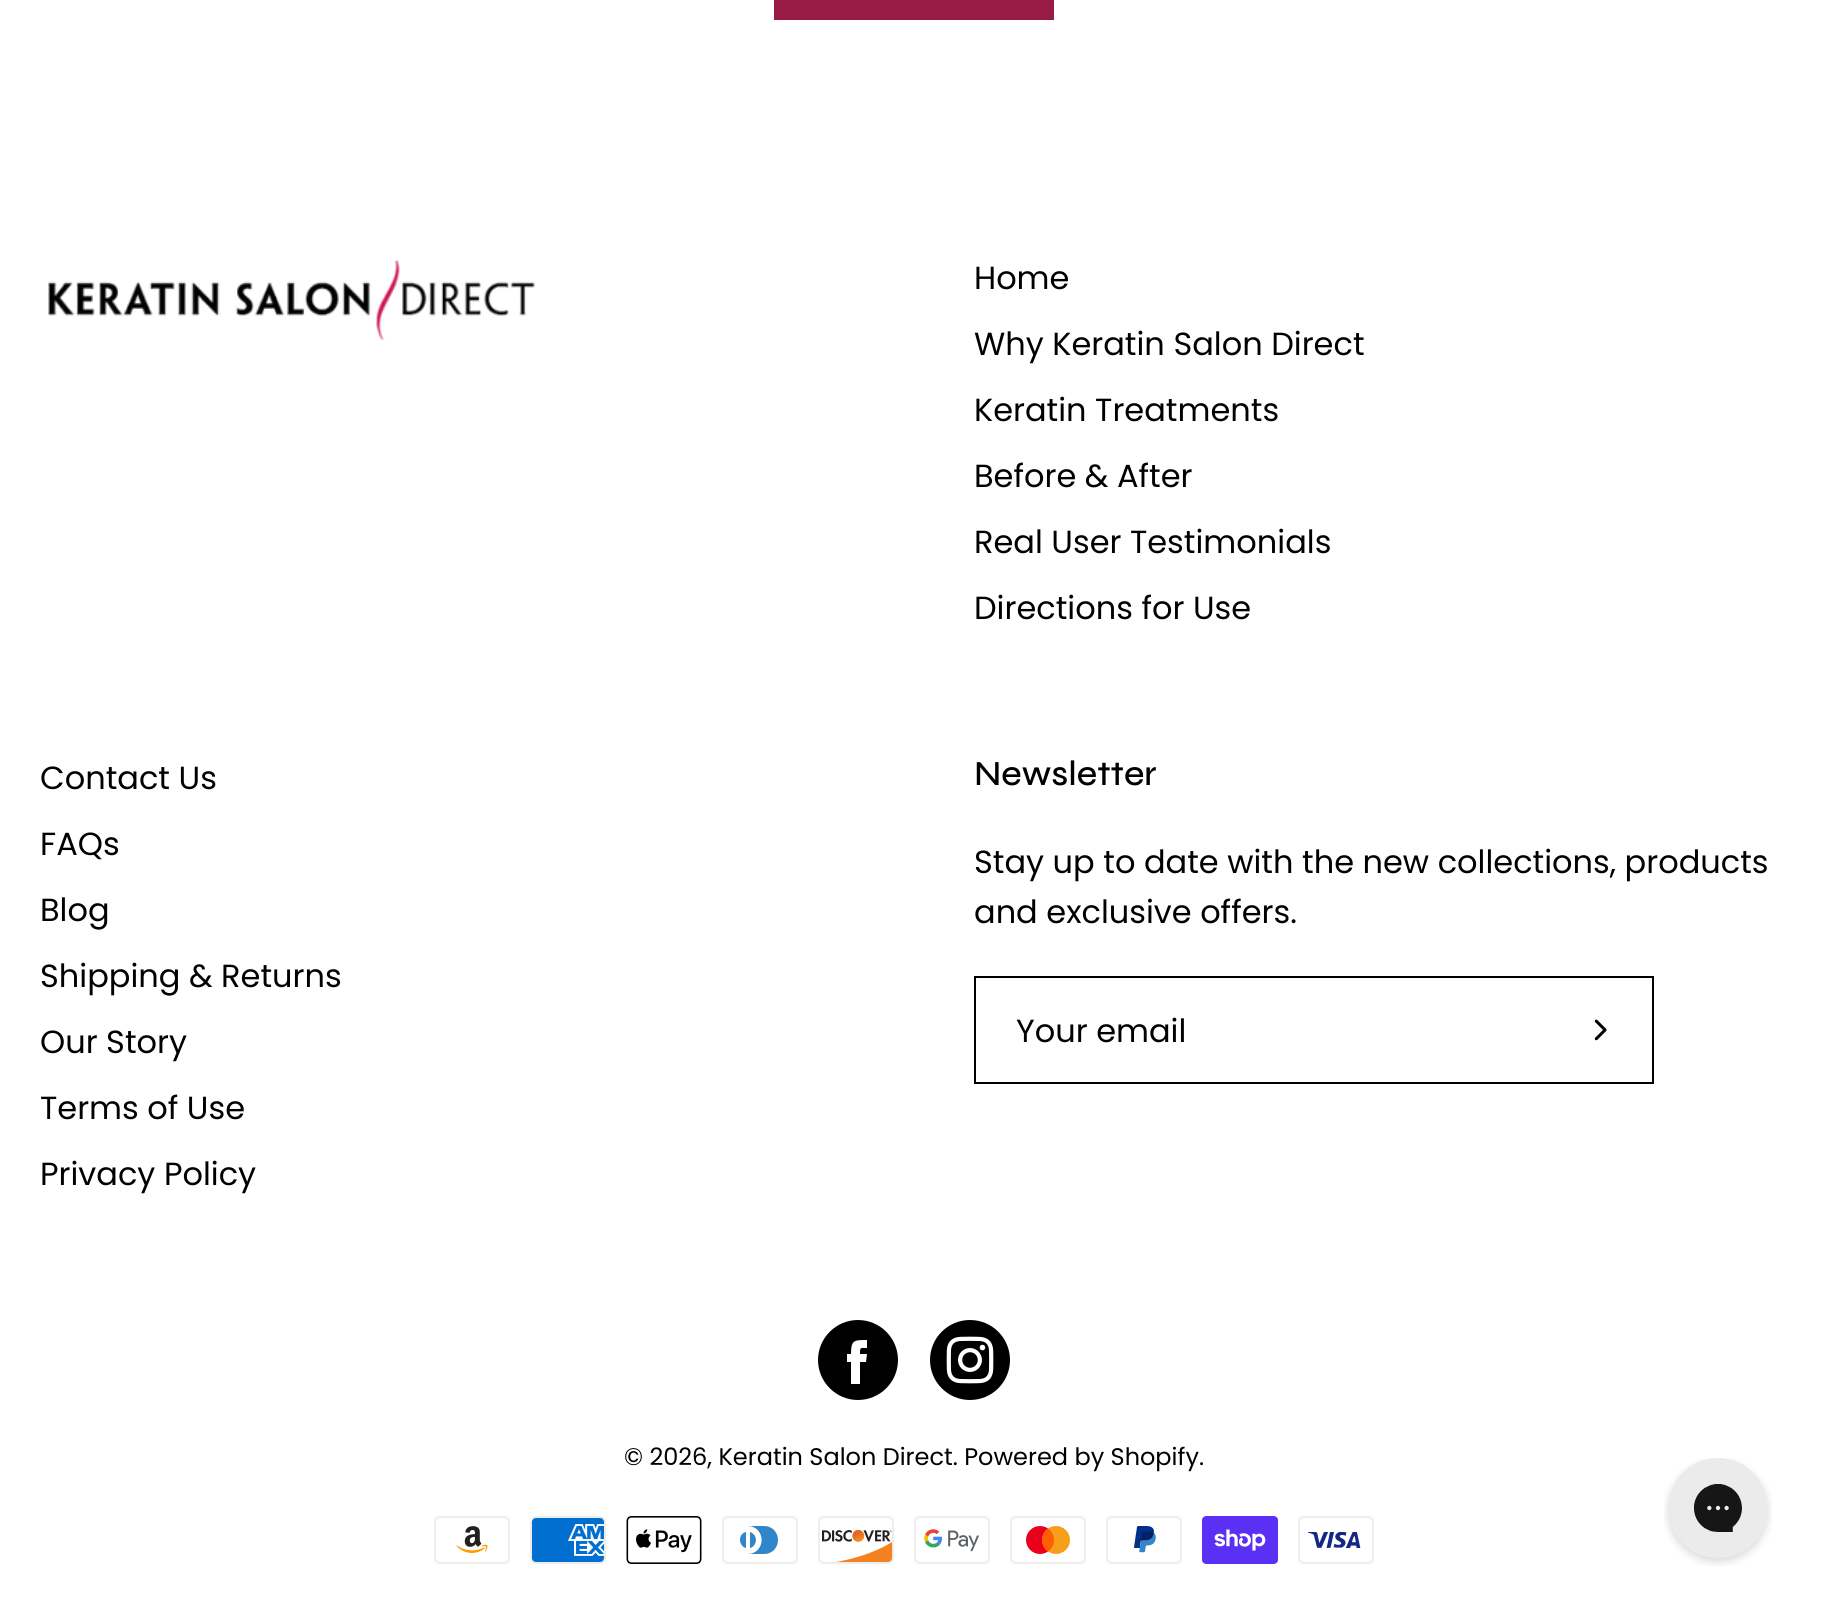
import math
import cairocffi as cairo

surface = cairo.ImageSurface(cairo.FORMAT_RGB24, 1828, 1612)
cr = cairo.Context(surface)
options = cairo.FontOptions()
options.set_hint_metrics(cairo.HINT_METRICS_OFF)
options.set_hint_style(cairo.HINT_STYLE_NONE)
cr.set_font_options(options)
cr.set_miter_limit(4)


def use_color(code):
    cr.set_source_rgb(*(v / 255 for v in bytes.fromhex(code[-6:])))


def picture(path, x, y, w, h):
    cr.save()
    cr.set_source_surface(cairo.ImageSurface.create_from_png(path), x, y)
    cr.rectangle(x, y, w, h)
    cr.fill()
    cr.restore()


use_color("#ffffff")
cr.paint()
use_color("#981b45")
cr.rectangle(774, 0, 280, 20)
cr.fill()
picture("img1.png", 48, 260, 487, 81)
cr.select_font_face("Poppins")
cr.set_font_size(32)
use_color("#000000")
cr.move_to(974, 289)
cr.show_text("Home")
cr.move_to(974, 355)
cr.show_text("Why Keratin Salon Direct")
cr.move_to(974, 421)
cr.show_text("Keratin Treatments")
cr.move_to(974, 487)
cr.show_text("Before & After")
cr.move_to(974, 553)
cr.show_text("Real User Testimonials")
cr.move_to(974, 619)
cr.show_text("Directions for Use")
cr.move_to(40, 789)
cr.show_text("Contact Us")
cr.move_to(40, 855)
cr.show_text("FAQs")
cr.move_to(40, 921)
cr.show_text("Blog")
cr.move_to(40, 987)
cr.show_text("Shipping & Returns")
cr.move_to(40, 1053)
cr.show_text("Our Story")
cr.move_to(40, 1119)
cr.show_text("Terms of Use")
cr.move_to(40, 1185)
cr.show_text("Privacy Policy")
cr.select_font_face("Syne Medium")
cr.set_font_size(35.25)
cr.move_to(974, 785)
cr.show_text("Newsletter")
cr.select_font_face("Poppins")
cr.set_font_size(32)
cr.move_to(974, 873)
cr.show_text("Stay up to date with the new collections, products")
cr.move_to(974, 923)
cr.show_text("and exclusive offers.")
cr.rectangle(974, 976, 680, 2)
cr.fill()
cr.rectangle(974, 1082, 576, 2)
cr.fill()
cr.rectangle(974, 976, 2, 108)
cr.fill()
cr.move_to(1016, 1042)
cr.show_text("Your email")
cr.rectangle(1652, 976, 2, 108)
cr.fill()
cr.rectangle(1550, 1082, 104, 2)
cr.fill()
picture("img2.png", 1594, 1019, 13, 22)
cr.new_path()
cr.move_to(818, 1360)
cr.curve_to(818, 1338, 836, 1320, 858, 1320)
cr.curve_to(880, 1320, 898, 1338, 898, 1360)
cr.curve_to(898, 1382, 880, 1400, 858, 1400)
cr.curve_to(836, 1400, 818, 1382, 818, 1360)
cr.close_path()
cr.move_to(860, 1384)
cr.line_to(860, 1362)
cr.line_to(866, 1362)
cr.line_to(867, 1354)
cr.line_to(860, 1354)
cr.curve_to(860, 1347, 860, 1348, 867, 1348)
cr.line_to(867, 1340)
cr.curve_to(854, 1340, 851, 1340, 851, 1354)
cr.line_to(847, 1354)
cr.line_to(847, 1362)
cr.line_to(851, 1362)
cr.line_to(851, 1384)
cr.close_path()
cr.fill()
picture("img3.png", 930, 1320, 80, 80)
cr.set_font_size(24)
cr.move_to(624, 1465)
cr.show_text("© 2026, Keratin Salon Direct. Powered by Shopify.")
picture("img4.png", 434, 1516, 76, 48)
picture("img5.png", 530, 1516, 76, 48)
picture("img6.png", 626, 1516, 76, 48)
picture("img7.png", 722, 1516, 76, 48)
picture("img8.png", 818, 1516, 76, 48)
picture("img9.png", 914, 1516, 76, 48)
picture("img10.png", 1010, 1516, 76, 48)
picture("img11.png", 1106, 1516, 76, 48)
picture("img12.png", 1202, 1516, 76, 48)
picture("img13.png", 1298, 1516, 76, 48)
picture("img14.png", 1664, 1458, 108, 108)
surface.write_to_png("result.png")
